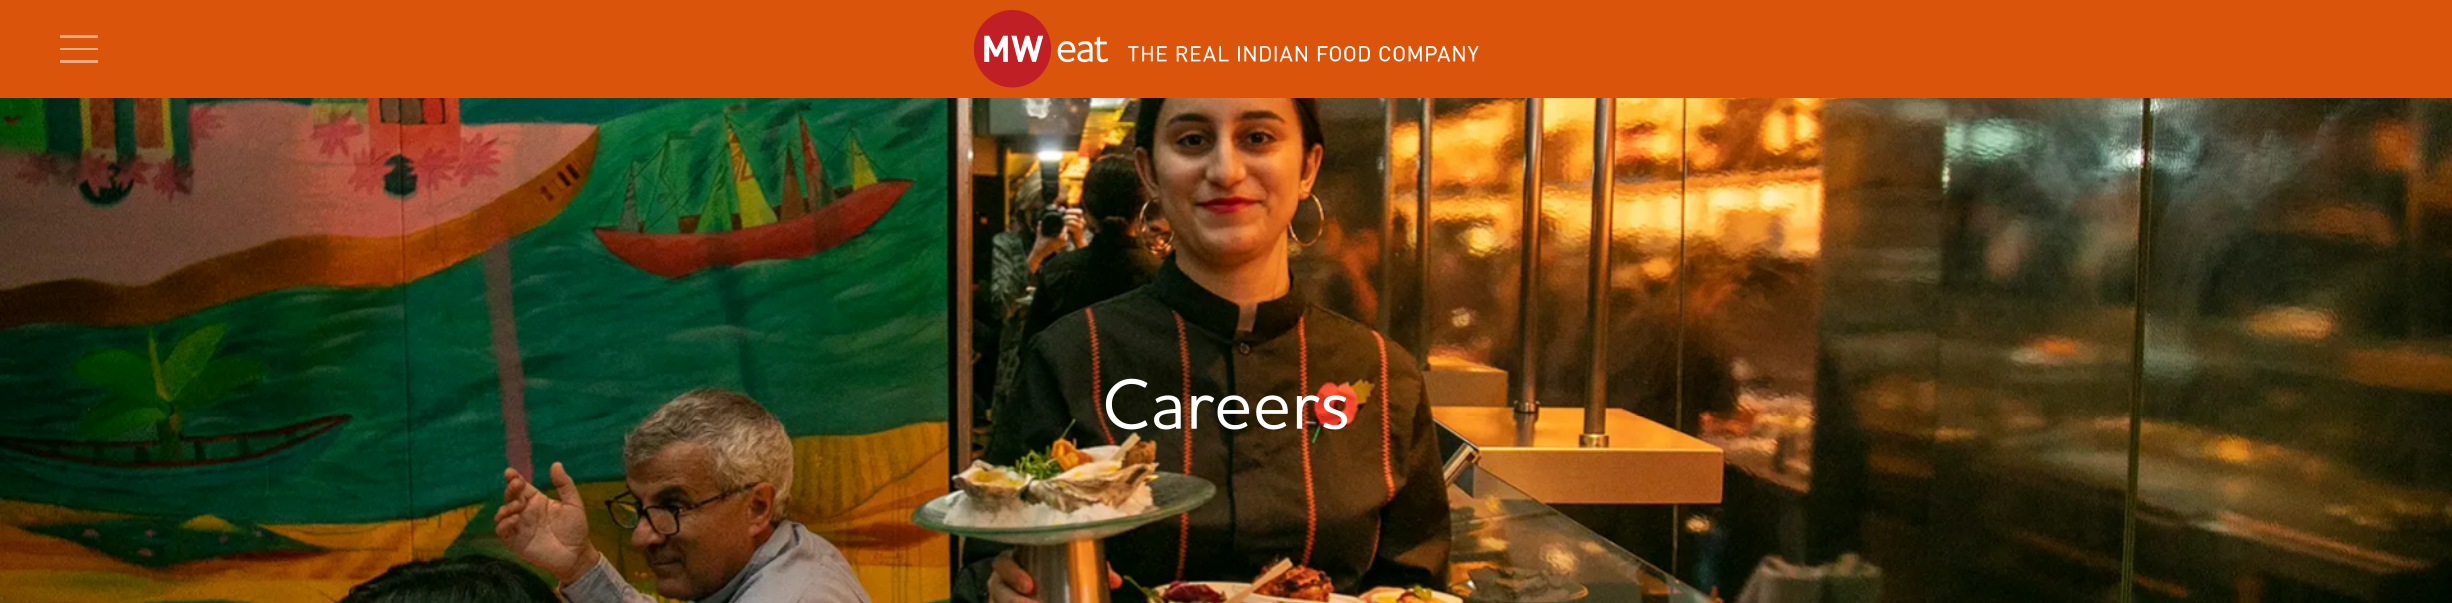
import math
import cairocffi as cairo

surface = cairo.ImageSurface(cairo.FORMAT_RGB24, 2452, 603)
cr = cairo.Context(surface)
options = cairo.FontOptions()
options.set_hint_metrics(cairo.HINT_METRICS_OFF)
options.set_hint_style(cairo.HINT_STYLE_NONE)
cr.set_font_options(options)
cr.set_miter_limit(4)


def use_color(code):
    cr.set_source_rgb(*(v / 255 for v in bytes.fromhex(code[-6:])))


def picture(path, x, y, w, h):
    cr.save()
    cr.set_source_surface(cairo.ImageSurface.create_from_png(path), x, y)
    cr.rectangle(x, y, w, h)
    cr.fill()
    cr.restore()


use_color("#ffffff")
cr.paint()
use_color("#db540b")
cr.rectangle(0, 0, 2452, 98)
cr.fill()
use_color("#edaa85")
cr.rectangle(60, 35, 38, 3)
cr.fill()
cr.rectangle(60, 48, 38, 2)
cr.fill()
cr.rectangle(60, 60, 38, 3)
cr.fill()
picture("img1.png", 974, 10, 505, 78)
picture("img2.png", 0, 98, 2452, 505)
picture("img3.png", 1105, 378, 243, 52)
surface.write_to_png("result.png")
